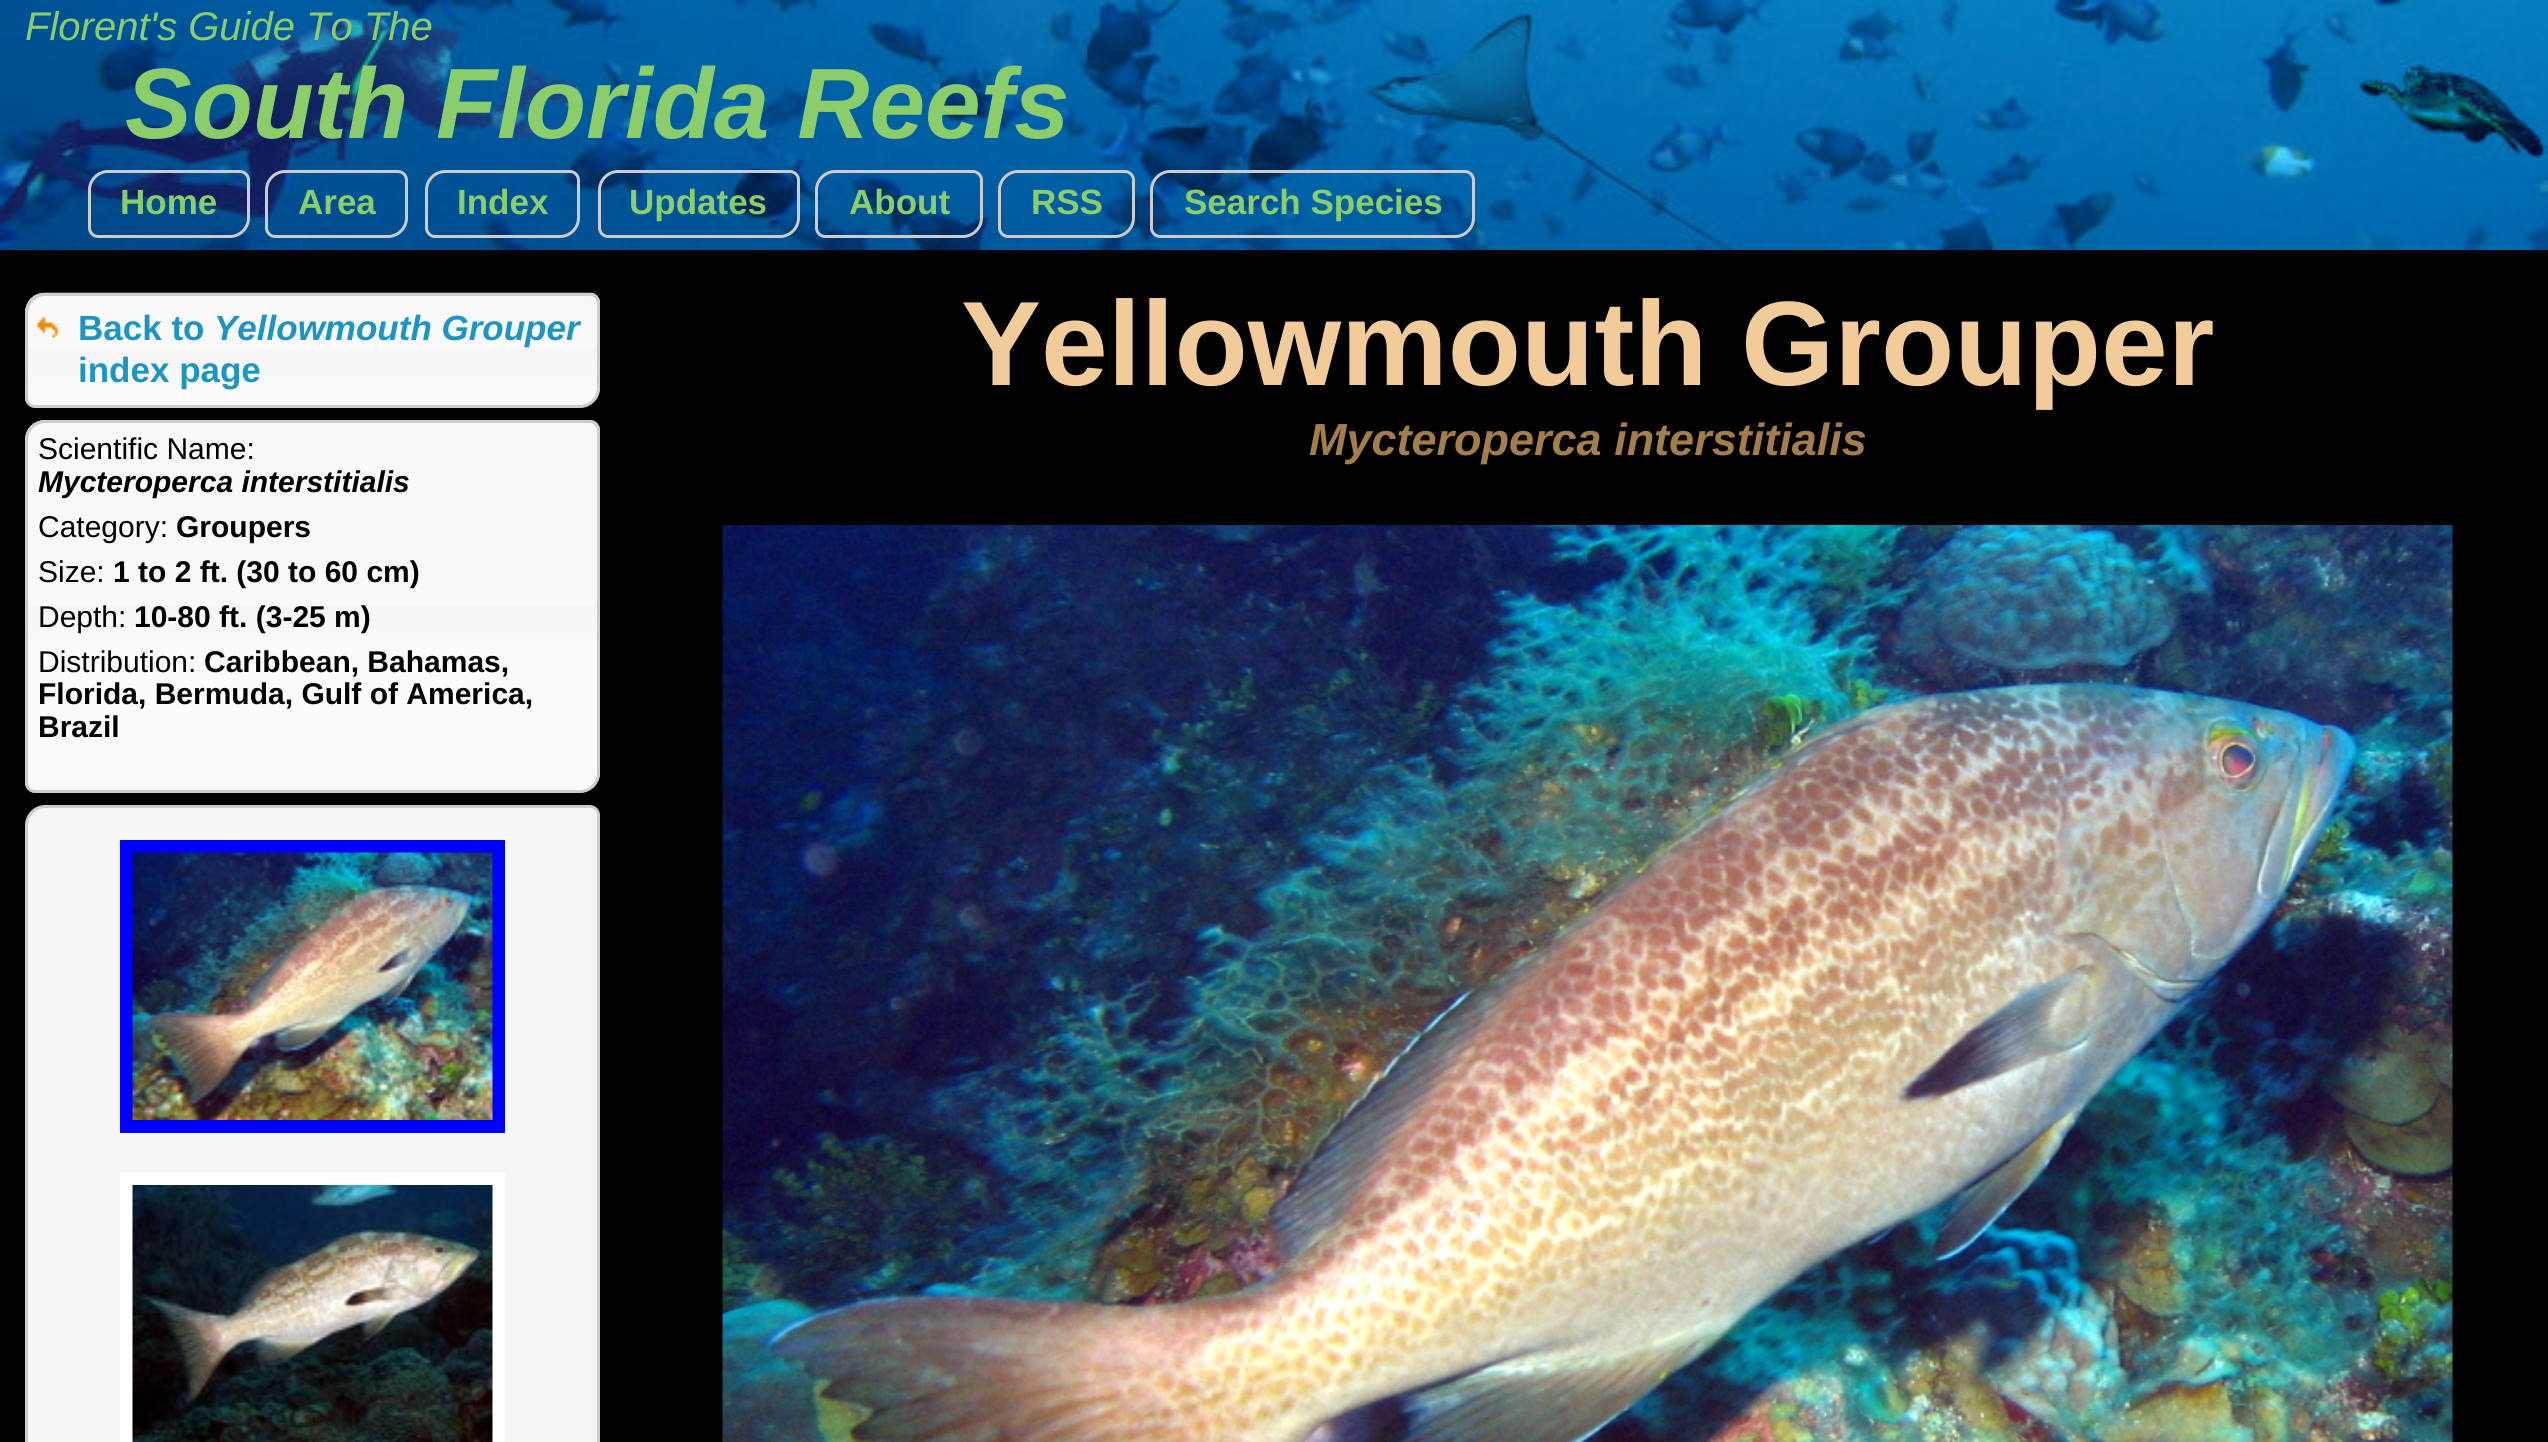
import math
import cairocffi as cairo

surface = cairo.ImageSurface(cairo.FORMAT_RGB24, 2548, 1442)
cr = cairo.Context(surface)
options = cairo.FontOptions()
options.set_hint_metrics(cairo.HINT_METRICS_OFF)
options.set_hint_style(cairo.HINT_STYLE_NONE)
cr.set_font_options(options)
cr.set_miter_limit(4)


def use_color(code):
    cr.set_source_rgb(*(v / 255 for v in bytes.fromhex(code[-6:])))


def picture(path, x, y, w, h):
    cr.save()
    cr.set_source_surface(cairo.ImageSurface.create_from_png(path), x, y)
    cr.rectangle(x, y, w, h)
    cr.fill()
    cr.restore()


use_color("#000000")
cr.paint()
picture("img1.png", 0, 0, 2548, 250)
cr.select_font_face("Liberation Sans", cairo.FONT_SLANT_ITALIC)
cr.set_font_size(40)
use_color("#8bcd6b")
cr.move_to(25, 40)
cr.show_text("Florent's Guide To The")
cr.select_font_face("Liberation Sans", cairo.FONT_SLANT_ITALIC, cairo.FONT_WEIGHT_BOLD)
cr.set_font_size(100)
cr.move_to(125, 138)
cr.show_text("South Florida Reefs")
cr.new_path()
cr.move_to(108, 171.5)
cr.line_to(240, 171.5)
cr.curve_to(244.5, 171.5, 248.5, 175.5, 248.5, 180)
cr.line_to(248.5, 218)
cr.curve_to(248.5, 228, 240, 236.5, 230, 236.5)
cr.line_to(98, 236.5)
cr.curve_to(93.5, 236.5, 89.5, 232.5, 89.5, 228)
cr.line_to(89.5, 190)
cr.curve_to(89.5, 180, 98, 171.5, 108, 171.5)
cr.close_path()
use_color("#cccccc")
cr.set_line_width(3)
cr.stroke()
cr.select_font_face("Liberation Sans", cairo.FONT_SLANT_NORMAL, cairo.FONT_WEIGHT_BOLD)
cr.set_font_size(35)
use_color("#8bcd6b")
cr.move_to(120, 214)
cr.show_text("Home")
cr.new_path()
cr.move_to(285, 171.5)
cr.line_to(398, 171.5)
cr.curve_to(402.5, 171.5, 406.5, 175.5, 406.5, 180)
cr.line_to(406.5, 218)
cr.curve_to(406.5, 228, 398, 236.5, 388, 236.5)
cr.line_to(275, 236.5)
cr.curve_to(270.5, 236.5, 266.5, 232.5, 266.5, 228)
cr.line_to(266.5, 190)
cr.curve_to(266.5, 180, 275, 171.5, 285, 171.5)
cr.close_path()
use_color("#cccccc")
cr.stroke()
use_color("#8bcd6b")
cr.move_to(298, 214)
cr.show_text("Area")
cr.new_path()
cr.move_to(445, 171.5)
cr.line_to(570, 171.5)
cr.curve_to(574.5, 171.5, 578.5, 175.5, 578.5, 180)
cr.line_to(578.5, 218)
cr.curve_to(578.5, 228, 570, 236.5, 560, 236.5)
cr.line_to(435, 236.5)
cr.curve_to(430.5, 236.5, 426.5, 232.5, 426.5, 228)
cr.line_to(426.5, 190)
cr.curve_to(426.5, 180, 435, 171.5, 445, 171.5)
cr.close_path()
use_color("#cccccc")
cr.stroke()
use_color("#8bcd6b")
cr.move_to(457, 214)
cr.show_text("Index")
cr.new_path()
cr.move_to(618, 171.5)
cr.line_to(790, 171.5)
cr.curve_to(794.5, 171.5, 798.5, 175.5, 798.5, 180)
cr.line_to(798.5, 218)
cr.curve_to(798.5, 228, 790, 236.5, 780, 236.5)
cr.line_to(608, 236.5)
cr.curve_to(603.5, 236.5, 599.5, 232.5, 599.5, 228)
cr.line_to(599.5, 190)
cr.curve_to(599.5, 180, 608, 171.5, 618, 171.5)
cr.close_path()
use_color("#cccccc")
cr.stroke()
use_color("#8bcd6b")
cr.move_to(629, 214)
cr.show_text("Updates")
cr.new_path()
cr.move_to(835, 171.5)
cr.line_to(973, 171.5)
cr.curve_to(977.5, 171.5, 981.5, 175.5, 981.5, 180)
cr.line_to(981.5, 218)
cr.curve_to(981.5, 228, 973, 236.5, 963, 236.5)
cr.line_to(825, 236.5)
cr.curve_to(820.5, 236.5, 816.5, 232.5, 816.5, 228)
cr.line_to(816.5, 190)
cr.curve_to(816.5, 180, 825, 171.5, 835, 171.5)
cr.close_path()
use_color("#cccccc")
cr.stroke()
use_color("#8bcd6b")
cr.move_to(849, 214)
cr.show_text("About")
cr.new_path()
cr.move_to(1018, 171.5)
cr.line_to(1125, 171.5)
cr.curve_to(1129.5, 171.5, 1133.5, 175.5, 1133.5, 180)
cr.line_to(1133.5, 218)
cr.curve_to(1133.5, 228, 1125, 236.5, 1115, 236.5)
cr.line_to(1008, 236.5)
cr.curve_to(1003.5, 236.5, 999.5, 232.5, 999.5, 228)
cr.line_to(999.5, 190)
cr.curve_to(999.5, 180, 1008, 171.5, 1018, 171.5)
cr.close_path()
use_color("#cccccc")
cr.stroke()
use_color("#8bcd6b")
cr.move_to(1031, 214)
cr.show_text("RSS")
cr.new_path()
cr.move_to(1170, 171.5)
cr.line_to(1465, 171.5)
cr.curve_to(1469.5, 171.5, 1473.5, 175.5, 1473.5, 180)
cr.line_to(1473.5, 218)
cr.curve_to(1473.5, 228, 1465, 236.5, 1455, 236.5)
cr.line_to(1160, 236.5)
cr.curve_to(1155.5, 236.5, 1151.5, 232.5, 1151.5, 228)
cr.line_to(1151.5, 190)
cr.curve_to(1151.5, 180, 1160, 171.5, 1170, 171.5)
cr.close_path()
use_color("#cccccc")
cr.stroke()
use_color("#8bcd6b")
cr.move_to(1184, 214)
cr.show_text("Search Species")
picture("img2.png", 25, 292, 575, 116)
cr.new_path()
cr.move_to(45, 294.5)
cr.line_to(590, 294.5)
cr.curve_to(594.5, 294.5, 598.5, 298.5, 598.5, 303)
cr.line_to(598.5, 388)
cr.curve_to(598.5, 398, 590, 406.5, 580, 406.5)
cr.line_to(35, 406.5)
cr.curve_to(30.5, 406.5, 26.5, 402.5, 26.5, 398)
cr.line_to(26.5, 313)
cr.curve_to(26.5, 303, 35, 294.5, 45, 294.5)
cr.close_path()
use_color("#cccccc")
cr.stroke()
picture("img3.png", 36, 316, 23, 23)
use_color("#1c94c4")
cr.move_to(78, 340)
cr.show_text("Back to")
cr.select_font_face("Liberation Sans", cairo.FONT_SLANT_ITALIC, cairo.FONT_WEIGHT_BOLD)
cr.move_to(214, 340)
cr.show_text("Yellowmouth Grouper")
cr.select_font_face("Liberation Sans", cairo.FONT_SLANT_NORMAL, cairo.FONT_WEIGHT_BOLD)
cr.move_to(78, 382)
cr.show_text("index page")
picture("img4.png", 25, 420, 575, 373)
cr.new_path()
cr.move_to(45, 421.5)
cr.line_to(590, 421.5)
cr.curve_to(594.5, 421.5, 598.5, 425.5, 598.5, 430)
cr.line_to(598.5, 773)
cr.curve_to(598.5, 783, 590, 791.5, 580, 791.5)
cr.line_to(35, 791.5)
cr.curve_to(30.5, 791.5, 26.5, 787.5, 26.5, 783)
cr.line_to(26.5, 440)
cr.curve_to(26.5, 430, 35, 421.5, 45, 421.5)
cr.close_path()
use_color("#cccccc")
cr.stroke()
cr.select_font_face("Liberation Sans")
cr.set_font_size(30)
use_color("#000000")
cr.move_to(38, 459)
cr.show_text("Scientific Name:")
cr.select_font_face("Liberation Sans", cairo.FONT_SLANT_ITALIC, cairo.FONT_WEIGHT_BOLD)
cr.move_to(38, 492)
cr.show_text("Mycteroperca interstitialis")
cr.select_font_face("Liberation Sans")
cr.move_to(38, 537)
cr.show_text("Category:")
cr.select_font_face("Liberation Sans", cairo.FONT_SLANT_NORMAL, cairo.FONT_WEIGHT_BOLD)
cr.move_to(176, 537)
cr.show_text("Groupers")
cr.select_font_face("Liberation Sans")
cr.move_to(38, 582)
cr.show_text("Size:")
cr.select_font_face("Liberation Sans", cairo.FONT_SLANT_NORMAL, cairo.FONT_WEIGHT_BOLD)
cr.move_to(113, 582)
cr.show_text("1 to 2 ft. (30 to 60 cm)")
cr.select_font_face("Liberation Sans")
cr.move_to(38, 627)
cr.show_text("Depth:")
cr.select_font_face("Liberation Sans", cairo.FONT_SLANT_NORMAL, cairo.FONT_WEIGHT_BOLD)
cr.move_to(134, 627)
cr.show_text("10-80 ft. (3-25 m)")
cr.select_font_face("Liberation Sans")
cr.move_to(38, 672)
cr.show_text("Distribution:")
cr.select_font_face("Liberation Sans", cairo.FONT_SLANT_NORMAL, cairo.FONT_WEIGHT_BOLD)
cr.move_to(204, 672)
cr.show_text("Caribbean, Bahamas,")
cr.move_to(38, 704)
cr.show_text("Florida, Bermuda, Gulf of America,")
cr.move_to(38, 737)
cr.show_text("Brazil")
use_color("#f6f6f6")
cr.new_path()
cr.move_to(45, 806.5)
cr.line_to(590, 806.5)
cr.curve_to(594.5, 806.5, 598.5, 810.5, 598.5, 815)
cr.line_to(598.5, 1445)
cr.curve_to(598.5, 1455, 590, 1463.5, 580, 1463.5)
cr.line_to(35, 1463.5)
cr.curve_to(30.5, 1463.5, 26.5, 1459.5, 26.5, 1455)
cr.line_to(26.5, 825)
cr.curve_to(26.5, 815, 35, 806.5, 45, 806.5)
cr.close_path()
cr.fill_preserve()
use_color("#cccccc")
cr.stroke()
cr.rectangle(126.5, 846.5, 372, 280)
use_color("#0000ff")
cr.set_line_width(13)
cr.stroke()
picture("img5.png", 132, 852, 361, 268)
cr.rectangle(126.5, 1179.5, 372, 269)
use_color("#ffffff")
cr.stroke()
picture("img6.png", 132, 1185, 361, 257)
cr.set_font_size(120)
use_color("#f1cb99")
cr.move_to(961, 385)
cr.show_text("Yellowmouth Grouper")
cr.select_font_face("Liberation Sans", cairo.FONT_SLANT_ITALIC, cairo.FONT_WEIGHT_BOLD)
cr.set_font_size(45)
use_color("#a37d4c")
cr.move_to(1309, 455)
cr.show_text("Mycteroperca interstitialis")
picture("img7.png", 722, 525, 1731, 917)
surface.write_to_png("result.png")
